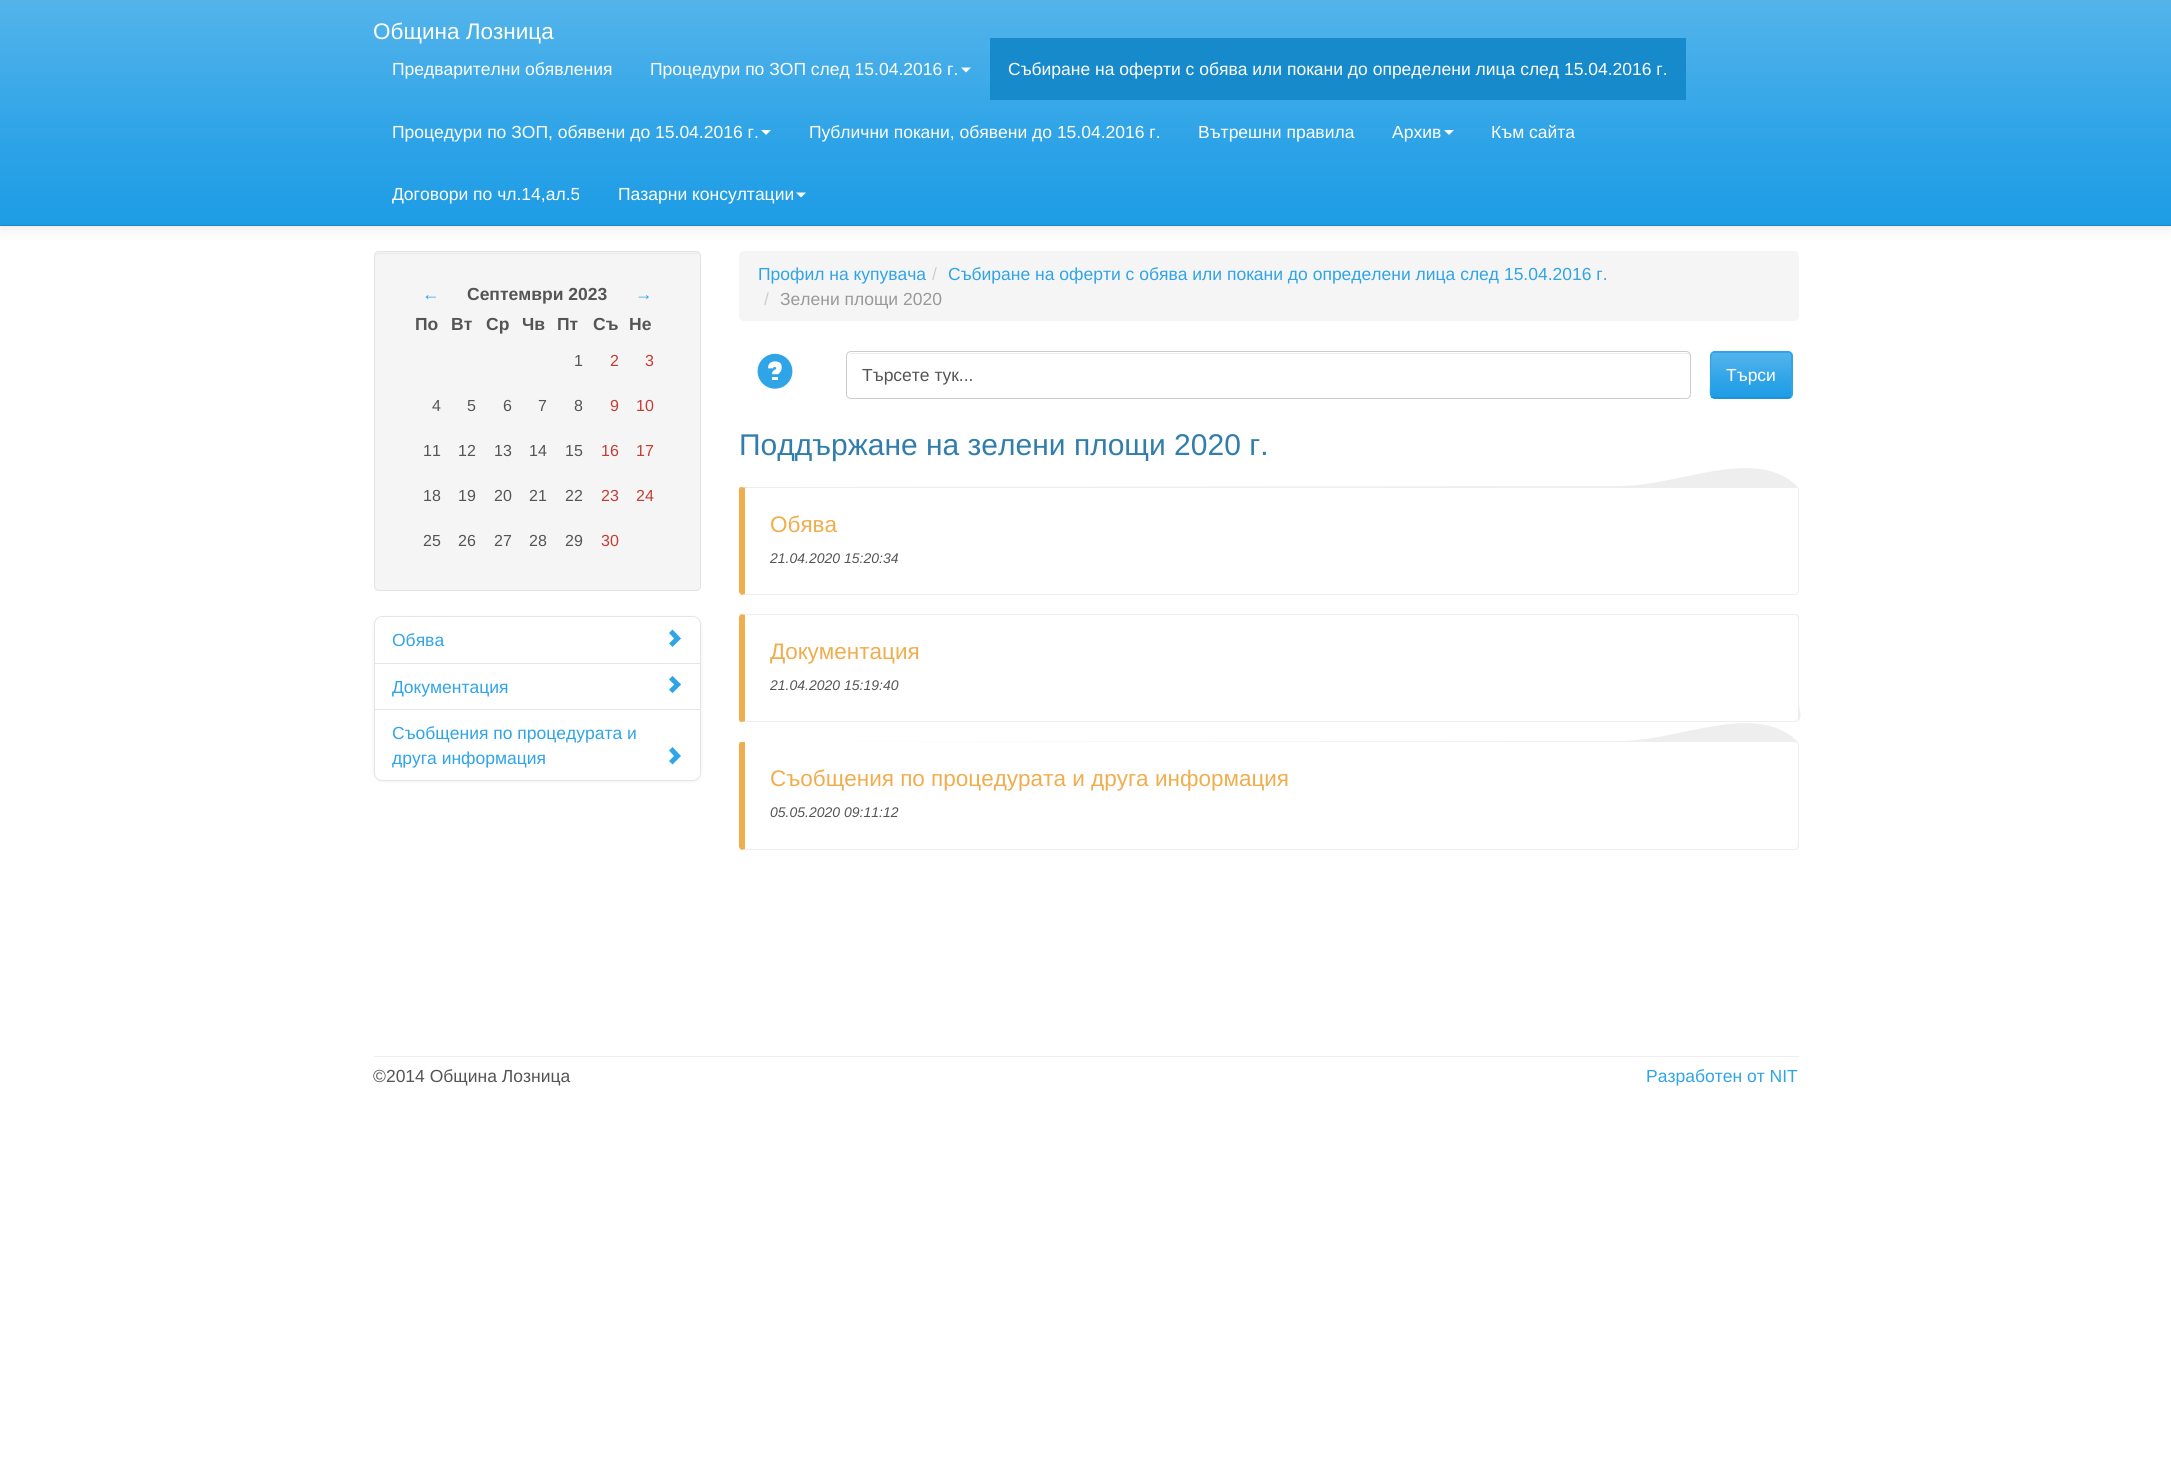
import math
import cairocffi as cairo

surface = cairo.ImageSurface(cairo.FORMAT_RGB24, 2171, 1469)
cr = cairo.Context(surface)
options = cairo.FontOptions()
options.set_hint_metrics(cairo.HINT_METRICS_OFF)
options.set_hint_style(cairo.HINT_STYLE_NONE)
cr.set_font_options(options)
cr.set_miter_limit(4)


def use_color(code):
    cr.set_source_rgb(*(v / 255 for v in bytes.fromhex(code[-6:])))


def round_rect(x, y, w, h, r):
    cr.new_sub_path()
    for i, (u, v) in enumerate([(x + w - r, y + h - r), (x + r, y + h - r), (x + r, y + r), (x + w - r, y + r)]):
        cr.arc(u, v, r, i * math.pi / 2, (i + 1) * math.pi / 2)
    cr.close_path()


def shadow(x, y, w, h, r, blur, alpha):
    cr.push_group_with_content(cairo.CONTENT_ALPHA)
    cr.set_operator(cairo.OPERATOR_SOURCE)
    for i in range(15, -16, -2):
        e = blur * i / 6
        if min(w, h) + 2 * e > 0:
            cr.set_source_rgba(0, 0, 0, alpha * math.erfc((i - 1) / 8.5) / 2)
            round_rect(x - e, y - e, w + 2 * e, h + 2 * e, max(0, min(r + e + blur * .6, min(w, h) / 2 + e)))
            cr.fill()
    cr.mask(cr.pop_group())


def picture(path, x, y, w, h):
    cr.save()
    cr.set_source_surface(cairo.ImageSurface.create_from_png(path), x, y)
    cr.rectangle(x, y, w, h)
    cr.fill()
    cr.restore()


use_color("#ffffff")
cr.paint()
use_color("#000000")
shadow(0, 1, 2171, 227, 0, 6, 0.1)
gradient = cairo.LinearGradient(1086, 0, 1086, 225)
gradient.add_color_stop_rgba(0, 0.329, 0.706, 0.922, 1)
gradient.add_color_stop_rgba(0.6, 0.184, 0.643, 0.906, 1)
gradient.add_color_stop_rgba(1, 0.114, 0.612, 0.898, 1)
cr.set_source(gradient)
cr.rectangle(0, 0, 2171, 225)
cr.fill()
use_color("#178acc")
cr.rectangle(0, 225, 2171, 1)
cr.fill()
cr.select_font_face("Liberation Sans")
cr.set_font_size(22.5)
use_color("#ffffff")
cr.move_to(373, 39)
cr.show_text("Община Лозница")
cr.set_font_size(17.5)
cr.move_to(392, 75)
cr.show_text("Предварителни обявления")
cr.move_to(650, 75)
cr.show_text("Процедури по ЗОП след 15.04.2016 г.")
cr.new_path()
cr.move_to(961, 67.5)
cr.line_to(971, 67.5)
cr.line_to(966, 72.5)
cr.close_path()
cr.fill()
use_color("#178acc")
cr.rectangle(990, 38, 696, 62)
cr.fill()
use_color("#ffffff")
cr.move_to(1008, 75)
cr.show_text("Събиране на оферти с обява или покани до определени лица след 15.04.2016 г.")
cr.move_to(392, 138)
cr.show_text("Процедури по ЗОП, обявени до 15.04.2016 г.")
cr.new_path()
cr.move_to(761, 130)
cr.line_to(771, 130)
cr.line_to(766, 135)
cr.close_path()
cr.fill()
cr.move_to(809, 138)
cr.show_text("Публични покани, обявени до 15.04.2016 г.")
cr.move_to(1198, 138)
cr.show_text("Вътрешни правила")
cr.move_to(1392, 138)
cr.show_text("Архив")
cr.new_path()
cr.move_to(1444, 130)
cr.line_to(1454, 130)
cr.line_to(1449, 135)
cr.close_path()
cr.fill()
cr.move_to(1491, 138)
cr.show_text("Към сайта")
cr.move_to(392, 200)
cr.show_text("Договори по чл.14,ал.5")
cr.move_to(618, 200)
cr.show_text("Пазарни консултации")
cr.new_path()
cr.move_to(796, 192.5)
cr.line_to(806, 192.5)
cr.line_to(801, 197.5)
cr.close_path()
cr.fill()
use_color("#f5f5f5")
round_rect(374, 251, 327, 340, 5)
cr.fill()
use_color("#e9e9e9")
cr.new_path()
cr.move_to(379, 254)
cr.line_to(696, 254)
cr.curve_to(698, 254, 700, 255, 700, 258)
cr.line_to(700, 257)
cr.curve_to(700, 255, 698, 253, 696, 253)
cr.line_to(379, 253)
cr.curve_to(377, 253, 375, 255, 375, 257)
cr.line_to(375, 258)
cr.curve_to(375, 255, 377, 254, 379, 254)
cr.close_path()
cr.fill()
round_rect(374.5, 251.5, 326, 339, 4.5)
use_color("#e3e3e3")
cr.set_line_width(1)
cr.stroke()
cr.select_font_face("Liberation Sans", cairo.FONT_SLANT_NORMAL, cairo.FONT_WEIGHT_BOLD)
use_color("#2fa4e7")
cr.move_to(422, 300)
cr.show_text("←")
use_color("#555555")
cr.move_to(467, 300)
cr.show_text("Септември 2023")
use_color("#2fa4e7")
cr.move_to(635, 300)
cr.show_text("→")
use_color("#555555")
cr.move_to(415, 330)
cr.show_text("По")
cr.move_to(451, 330)
cr.show_text("Вт")
cr.move_to(486, 330)
cr.show_text("Ср")
cr.move_to(522, 330)
cr.show_text("Чв")
cr.move_to(557, 330)
cr.show_text("Пт")
cr.move_to(593, 330)
cr.show_text("Съ")
cr.move_to(629, 330)
cr.show_text("Не")
cr.select_font_face("Liberation Sans")
cr.set_font_size(16)
cr.move_to(574, 366)
cr.show_text("1")
use_color("#c43c35")
cr.move_to(610, 366)
cr.show_text("2")
cr.move_to(645, 366)
cr.show_text("3")
use_color("#555555")
cr.move_to(432, 411)
cr.show_text("4")
cr.move_to(467, 411)
cr.show_text("5")
cr.move_to(503, 411)
cr.show_text("6")
cr.move_to(538, 411)
cr.show_text("7")
cr.move_to(574, 411)
cr.show_text("8")
use_color("#c43c35")
cr.move_to(610, 411)
cr.show_text("9")
cr.move_to(636, 411)
cr.show_text("10")
use_color("#555555")
cr.move_to(423, 456)
cr.show_text("11")
cr.move_to(458, 456)
cr.show_text("12")
cr.move_to(494, 456)
cr.show_text("13")
cr.move_to(529, 456)
cr.show_text("14")
cr.move_to(565, 456)
cr.show_text("15")
use_color("#c43c35")
cr.move_to(601, 456)
cr.show_text("16")
cr.move_to(636, 456)
cr.show_text("17")
use_color("#555555")
cr.move_to(423, 501)
cr.show_text("18")
cr.move_to(458, 501)
cr.show_text("19")
cr.move_to(494, 501)
cr.show_text("20")
cr.move_to(529, 501)
cr.show_text("21")
cr.move_to(565, 501)
cr.show_text("22")
use_color("#c43c35")
cr.move_to(601, 501)
cr.show_text("23")
cr.move_to(636, 501)
cr.show_text("24")
use_color("#555555")
cr.move_to(423, 546)
cr.show_text("25")
cr.move_to(458, 546)
cr.show_text("26")
cr.move_to(494, 546)
cr.show_text("27")
cr.move_to(529, 546)
cr.show_text("28")
cr.move_to(565, 546)
cr.show_text("29")
use_color("#c43c35")
cr.move_to(601, 546)
cr.show_text("30")
cr.save()
cr.set_fill_rule(cairo.FILL_RULE_EVEN_ODD)
cr.new_path()
cr.move_to(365, 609)
cr.line_to(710, 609)
cr.line_to(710, 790)
cr.line_to(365, 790)
cr.close_path()
cr.move_to(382, 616)
cr.line_to(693, 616)
cr.curve_to(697.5, 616, 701, 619.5, 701, 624)
cr.line_to(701, 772)
cr.curve_to(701, 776.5, 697.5, 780, 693, 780)
cr.line_to(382, 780)
cr.curve_to(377.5, 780, 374, 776.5, 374, 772)
cr.line_to(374, 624)
cr.curve_to(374, 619.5, 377.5, 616, 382, 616)
cr.close_path()
cr.clip()
use_color("#000000")
shadow(374, 618, 327, 163, 8, 2.5, 0.07)
cr.restore()
cr.new_path()
cr.move_to(382, 616.5)
cr.line_to(693, 616.5)
cr.curve_to(697, 616.5, 700.5, 620, 700.5, 624)
cr.line_to(700.5, 663.5)
cr.line_to(374.5, 663.5)
cr.line_to(374.5, 624)
cr.curve_to(374.5, 620, 378, 616.5, 382, 616.5)
cr.close_path()
use_color("#e5e5e5")
cr.stroke()
cr.set_font_size(17.5)
use_color("#2fa4e7")
cr.move_to(392, 646)
cr.show_text("Обява")
cr.new_path()
cr.move_to(669, 643.5)
cr.line_to(674, 638.5)
cr.line_to(669, 633)
cr.line_to(672.5, 629.5)
cr.line_to(681, 638.5)
cr.line_to(672.5, 647)
cr.close_path()
cr.fill()
cr.rectangle(374.5, 663.5, 326, 46)
use_color("#e5e5e5")
cr.stroke()
use_color("#2fa4e7")
cr.move_to(392, 693)
cr.show_text("Документация")
picture("img1.png", 669, 676, 12, 18)
cr.new_path()
cr.move_to(374.5, 709.5)
cr.line_to(700.5, 709.5)
cr.line_to(700.5, 773)
cr.curve_to(700.5, 777, 697, 780.5, 693, 780.5)
cr.line_to(382, 780.5)
cr.curve_to(378, 780.5, 374.5, 777, 374.5, 773)
cr.close_path()
use_color("#e5e5e5")
cr.stroke()
use_color("#2fa4e7")
cr.move_to(392, 739)
cr.show_text("Съобщения по процедурата и")
cr.move_to(392, 764)
cr.show_text("друга информация")
cr.new_path()
cr.move_to(669, 761)
cr.line_to(674, 756)
cr.line_to(669, 750.5)
cr.line_to(672.5, 747)
cr.line_to(681, 756)
cr.line_to(672.5, 764.5)
cr.close_path()
cr.fill()
use_color("#f5f5f5")
round_rect(739, 251, 1060, 70, 5)
cr.fill()
use_color("#2fa4e7")
cr.move_to(758, 280)
cr.show_text("Профил на купувача")
use_color("#cccccc")
cr.move_to(932, 280)
cr.show_text("/")
use_color("#2fa4e7")
cr.move_to(948, 280)
cr.show_text("Събиране на оферти с обява или покани до определени лица след 15.04.2016 г.")
use_color("#cccccc")
cr.move_to(764, 305)
cr.show_text("/")
use_color("#999999")
cr.move_to(780, 305)
cr.show_text("Зелени площи 2020")
picture("img2.png", 757, 353, 36, 36)
use_color("#ececec")
cr.new_path()
cr.move_to(851, 354)
cr.line_to(1686, 354)
cr.curve_to(1688, 354, 1690, 355, 1690, 358)
cr.curve_to(1690, 355, 1689, 353, 1686, 353)
cr.line_to(852, 353)
cr.curve_to(849, 353, 848, 355, 848, 358)
cr.curve_to(848, 355, 849, 354, 851, 354)
cr.close_path()
cr.fill()
round_rect(846.5, 351.5, 844, 47, 4.5)
use_color("#cccccc")
cr.stroke()
use_color("#555555")
cr.move_to(862, 381)
cr.show_text("Търсете тук...")
use_color("#2fa4e7")
round_rect(1710, 351, 83, 48, 5)
cr.fill()
gradient = cairo.LinearGradient(1751, 353, 1751, 398)
gradient.add_color_stop_rgba(0, 0.329, 0.706, 0.922, 1)
gradient.add_color_stop_rgba(0.6, 0.184, 0.643, 0.906, 1)
gradient.add_color_stop_rgba(1, 0.114, 0.612, 0.898, 1)
cr.set_source(gradient)
cr.rectangle(1711, 353, 80, 45)
cr.fill()
cr.new_path()
cr.move_to(1790.5, 397)
cr.line_to(1788, 398)
cr.line_to(1714.5, 398)
cr.line_to(1712, 397)
use_color("#178acc")
cr.set_line_width(1.2)
cr.stroke()
cr.new_path()
cr.move_to(1712, 397)
cr.curve_to(1709.5, 394.5, 1710.5, 390, 1710.5, 387.5)
cr.line_to(1710.5, 362.5)
cr.curve_to(1710.5, 349, 1712.5, 352, 1727, 352)
cr.line_to(1775.5, 352)
cr.curve_to(1790, 352, 1792, 349, 1792, 362.5)
cr.line_to(1792, 387.5)
cr.curve_to(1792, 390, 1793, 394.5, 1790.5, 397)
use_color("#2fa4e7")
cr.stroke()
use_color("#ffffff")
cr.move_to(1726, 381)
cr.show_text("Търси")
cr.set_font_size(30)
use_color("#317eac")
cr.move_to(739, 455)
cr.show_text("Поддържане на зелени площи 2020 г.")
use_color("#eeeeee")
cr.new_path()
cr.move_to(740, 487)
cr.line_to(1620, 486)
cr.curve_to(1680, 486, 1756, 445, 1798, 487)
cr.line_to(1797, 488)
cr.line_to(1795, 488)
cr.line_to(748, 488)
cr.close_path()
cr.fill()
cr.new_path()
cr.move_to(1799, 592)
cr.line_to(1798, 594)
cr.line_to(1797, 593)
cr.line_to(1798, 592)
cr.line_to(1798, 489)
cr.line_to(1797, 488)
cr.line_to(1798, 487)
cr.line_to(1799, 489)
cr.close_path()
cr.fill()
cr.new_path()
cr.move_to(742, 595)
cr.line_to(1795, 595)
cr.line_to(1798, 594)
cr.line_to(1797, 593)
cr.line_to(1795, 594)
cr.line_to(745, 594)
cr.line_to(741, 595)
cr.close_path()
cr.fill()
use_color("#f0ad4e")
cr.new_path()
cr.move_to(745, 488)
cr.line_to(745, 594)
cr.line_to(741, 595)
cr.line_to(739, 592)
cr.line_to(739, 489)
cr.line_to(740, 487)
cr.line_to(748, 488)
cr.close_path()
cr.fill()
cr.set_font_size(22.5)
cr.move_to(770, 532)
cr.show_text("Обява")
cr.select_font_face("Liberation Sans", cairo.FONT_SLANT_ITALIC)
cr.set_font_size(14)
use_color("#555555")
cr.move_to(770, 563)
cr.show_text("21.04.2020 15:20:34")
use_color("#eeeeee")
cr.new_path()
cr.move_to(742, 614)
cr.line_to(741, 614)
cr.line_to(745, 615)
cr.line_to(1795, 615)
cr.line_to(1797, 616)
cr.line_to(1798, 615)
cr.line_to(1795, 614)
cr.close_path()
cr.fill()
cr.new_path()
cr.move_to(1798, 615)
cr.line_to(1799, 616)
cr.line_to(1799, 703)
cr.curve_to(1799, 709, 1803, 718, 1798, 721)
cr.line_to(1797, 720)
cr.line_to(1798, 719)
cr.line_to(1798, 618)
cr.line_to(1797, 616)
cr.close_path()
cr.fill()
cr.new_path()
cr.move_to(1798, 721)
cr.line_to(1795, 722)
cr.line_to(741, 722)
cr.line_to(746, 721)
cr.line_to(1795, 721)
cr.line_to(1797, 720)
cr.close_path()
cr.fill()
use_color("#f0ad4e")
cr.new_path()
cr.move_to(745, 615)
cr.line_to(741, 614)
cr.curve_to(740, 615, 739, 616, 739, 618)
cr.line_to(739, 719)
cr.curve_to(739, 721, 740, 722, 741, 722)
cr.line_to(746, 721)
cr.line_to(745, 721)
cr.close_path()
cr.fill()
cr.select_font_face("Liberation Sans")
cr.set_font_size(22.5)
cr.move_to(770, 659)
cr.show_text("Документация")
cr.select_font_face("Liberation Sans", cairo.FONT_SLANT_ITALIC)
cr.set_font_size(14)
use_color("#555555")
cr.move_to(770, 690)
cr.show_text("21.04.2020 15:19:40")
use_color("#eeeeee")
cr.new_path()
cr.move_to(745, 742)
cr.line_to(740, 742)
cr.line_to(1620, 741)
cr.curve_to(1680, 741, 1756, 700, 1798, 742)
cr.line_to(1797, 743)
cr.line_to(1795, 742)
cr.close_path()
cr.fill()
cr.new_path()
cr.move_to(1799, 847)
cr.line_to(1798, 849)
cr.line_to(1797, 848)
cr.line_to(1798, 846)
cr.line_to(1798, 745)
cr.line_to(1797, 743)
cr.line_to(1798, 742)
cr.line_to(1799, 744)
cr.close_path()
cr.fill()
cr.new_path()
cr.move_to(742, 850)
cr.line_to(1795, 850)
cr.line_to(1798, 849)
cr.line_to(1797, 848)
cr.line_to(1795, 849)
cr.line_to(745, 849)
cr.line_to(741, 850)
cr.close_path()
cr.fill()
use_color("#f0ad4e")
cr.new_path()
cr.move_to(741, 850)
cr.line_to(739, 847)
cr.line_to(739, 744)
cr.line_to(740, 742)
cr.line_to(745, 742)
cr.line_to(745, 849)
cr.close_path()
cr.fill()
cr.select_font_face("Liberation Sans")
cr.set_font_size(22.5)
cr.move_to(770, 786)
cr.show_text("Съобщения по процедурата и друга информация")
cr.select_font_face("Liberation Sans", cairo.FONT_SLANT_ITALIC)
cr.set_font_size(14)
use_color("#555555")
cr.move_to(770, 817)
cr.show_text("05.05.2020 09:11:12")
use_color("#efefef")
cr.rectangle(374, 1056, 1425, 1)
cr.fill()
cr.select_font_face("Liberation Sans")
cr.set_font_size(17.5)
use_color("#555555")
cr.move_to(373, 1082)
cr.show_text("©2014 Община Лозница")
use_color("#2fa4e7")
cr.move_to(1646, 1082)
cr.show_text("Разработен от NIT")
surface.write_to_png("result.png")
